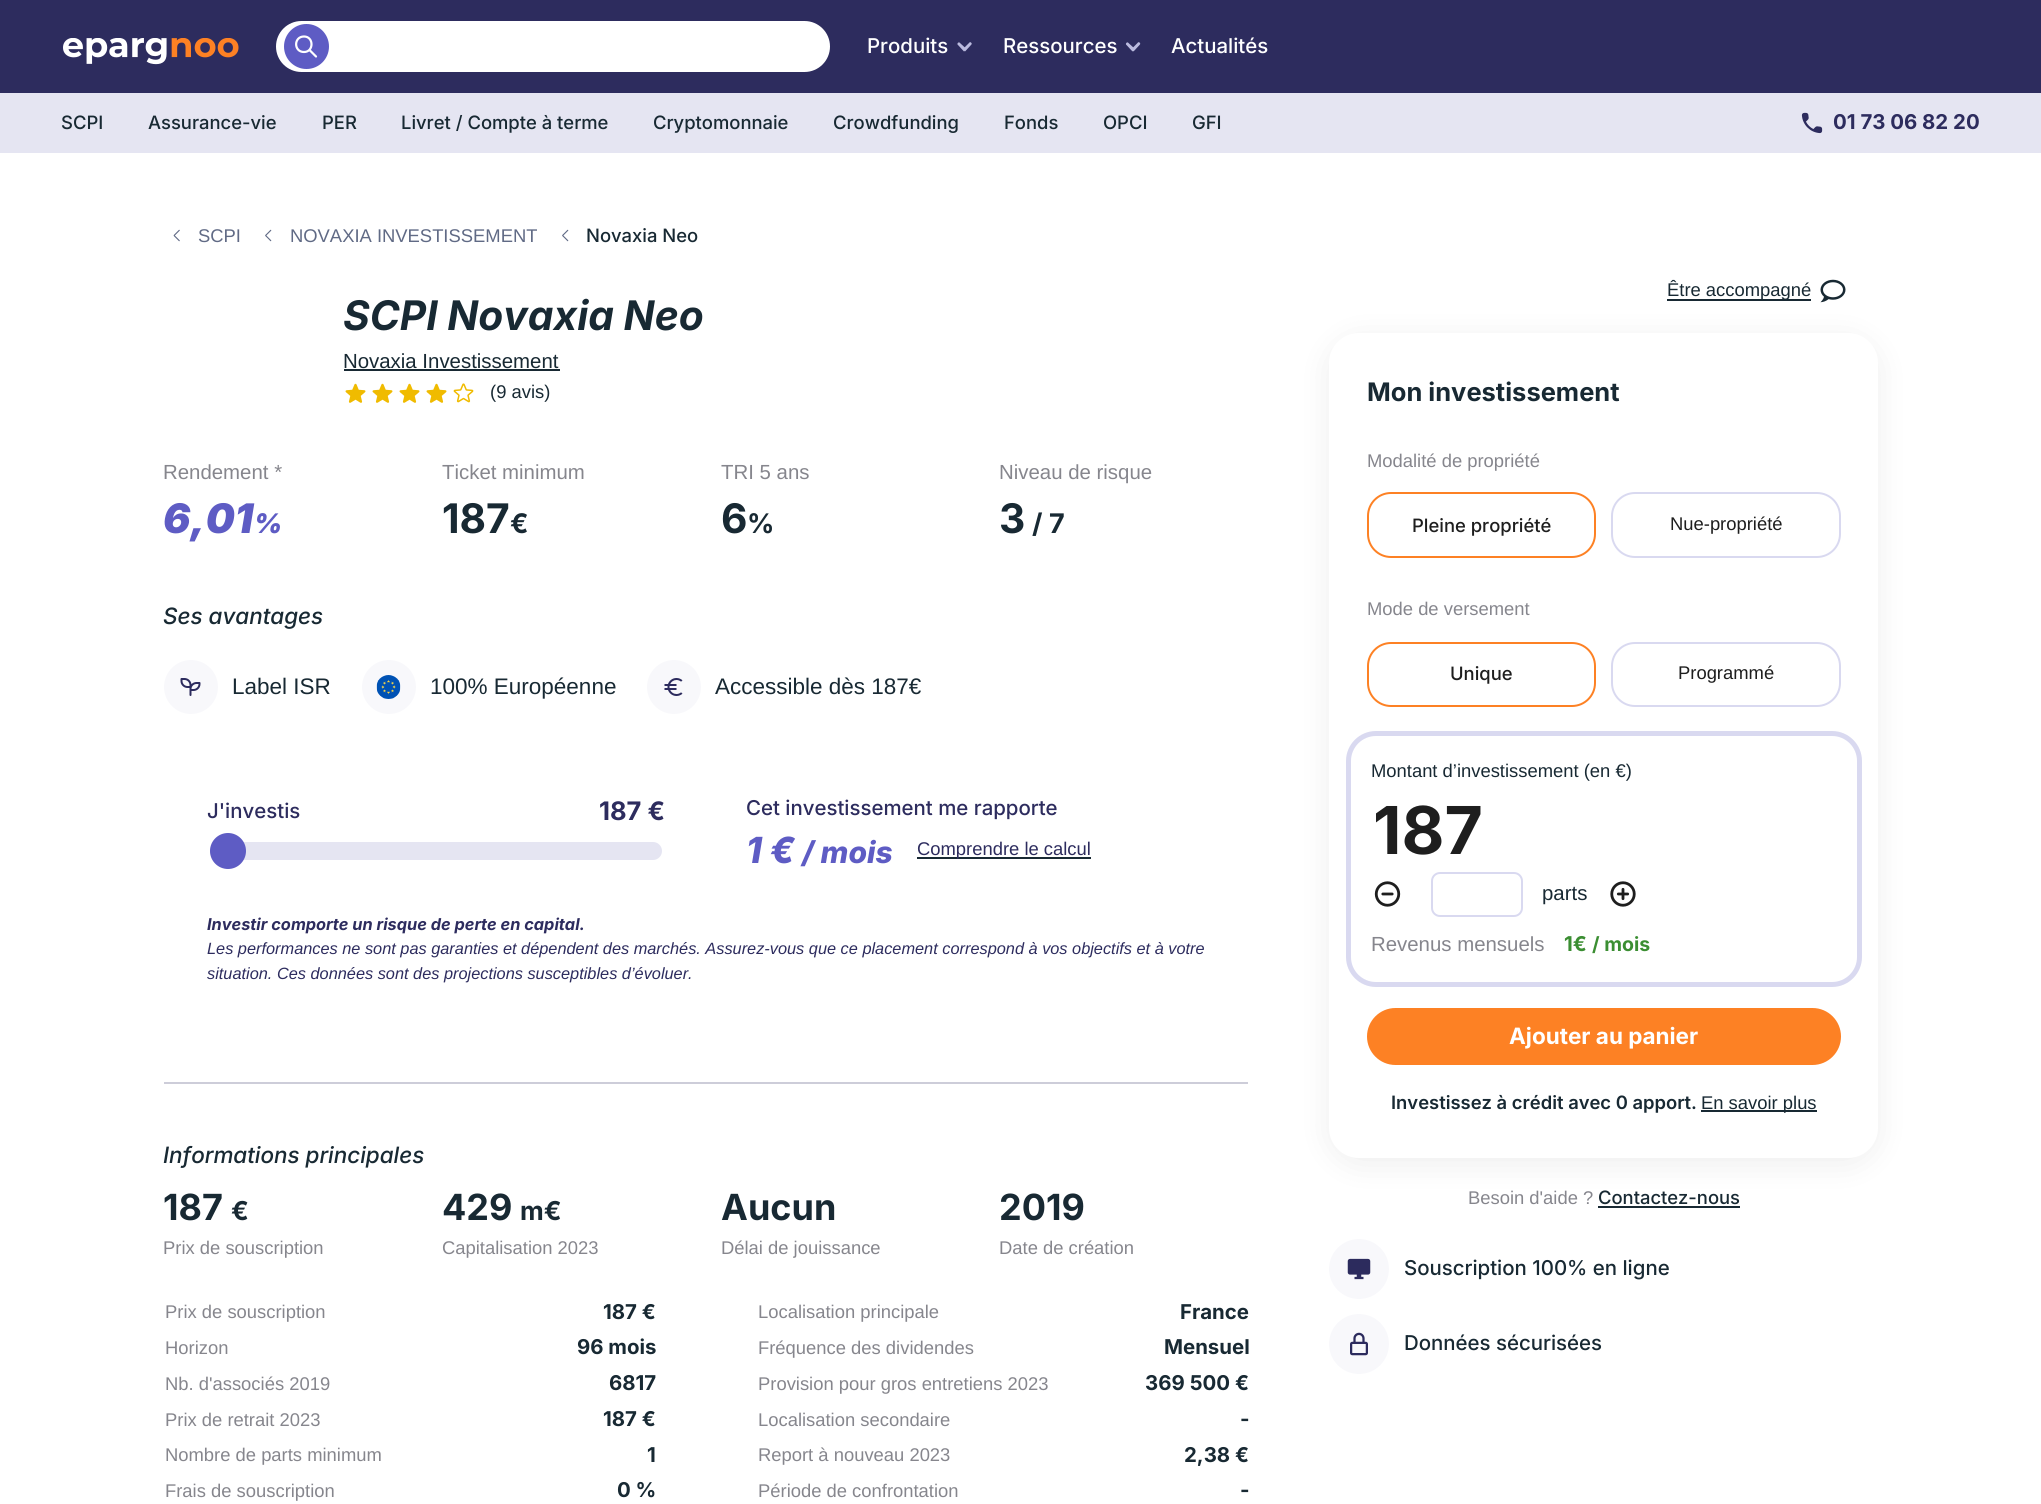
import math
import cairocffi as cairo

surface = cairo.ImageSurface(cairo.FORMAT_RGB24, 2041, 1504)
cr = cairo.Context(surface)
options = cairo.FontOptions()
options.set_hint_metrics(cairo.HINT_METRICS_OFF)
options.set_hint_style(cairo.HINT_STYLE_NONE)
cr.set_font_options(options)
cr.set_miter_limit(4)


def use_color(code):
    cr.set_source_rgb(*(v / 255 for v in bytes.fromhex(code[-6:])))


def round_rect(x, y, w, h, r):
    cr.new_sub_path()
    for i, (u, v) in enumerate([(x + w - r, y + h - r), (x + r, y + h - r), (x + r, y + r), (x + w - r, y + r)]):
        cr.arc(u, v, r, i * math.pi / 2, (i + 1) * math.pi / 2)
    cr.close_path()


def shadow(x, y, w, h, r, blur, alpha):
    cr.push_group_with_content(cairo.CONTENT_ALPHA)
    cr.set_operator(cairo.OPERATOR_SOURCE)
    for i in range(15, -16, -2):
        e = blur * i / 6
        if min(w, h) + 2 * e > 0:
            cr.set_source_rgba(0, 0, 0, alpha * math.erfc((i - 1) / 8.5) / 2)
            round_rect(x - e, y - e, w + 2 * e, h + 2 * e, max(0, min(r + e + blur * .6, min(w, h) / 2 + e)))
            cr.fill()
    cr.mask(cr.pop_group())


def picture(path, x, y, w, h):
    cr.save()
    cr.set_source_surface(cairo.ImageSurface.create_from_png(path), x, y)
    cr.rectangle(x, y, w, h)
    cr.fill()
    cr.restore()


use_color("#ffffff")
cr.paint()
use_color("#2d2c5e")
cr.rectangle(0, 0, 2041, 93)
cr.fill()
picture("img1.png", 63, 38, 176, 27)
use_color("#ffffff")
round_rect(276, 21, 554, 51, 25.5)
cr.fill()
use_color("#5e5cc4")
cr.arc(306.5, 46.5, 21.5, 0, 2 * math.pi)
cr.fill_preserve()
cr.stroke()
cr.new_path()
cr.move_to(309.5, 50)
cr.line_to(316, 56.5)
cr.move_to(304, 52)
cr.curve_to(293.5, 52, 293.5, 36.5, 304, 36.5)
cr.curve_to(314, 36.5, 314, 52, 304, 52)
use_color("#ffffff")
cr.set_line_width(2.2)
cr.set_line_cap(cairo.LINE_CAP_ROUND)
cr.set_line_join(cairo.LINE_JOIN_ROUND)
cr.stroke()
cr.select_font_face("Inter Medium")
cr.set_font_size(20.4)
cr.move_to(867, 53)
cr.show_text("Produits")
use_color("#bbbbdf")
cr.new_path()
cr.move_to(960, 43)
cr.line_to(966.5, 49)
cr.line_to(964, 51.5)
cr.line_to(957.5, 44.5)
cr.curve_to(957, 43, 959, 41.5, 960, 43)
cr.close_path()
cr.fill()
cr.new_path()
cr.move_to(963, 49)
cr.line_to(969, 43)
cr.curve_to(969.5, 42, 970.5, 42, 971, 42.5)
cr.curve_to(972, 43.5, 972, 44, 971, 45)
cr.line_to(965, 51.5)
cr.close_path()
cr.fill()
use_color("#ffffff")
cr.move_to(1003, 53)
cr.show_text("Ressources")
use_color("#bbbbdf")
cr.new_path()
cr.move_to(1128.5, 43)
cr.line_to(1135, 49)
cr.line_to(1132.5, 51.5)
cr.line_to(1126, 44.5)
cr.curve_to(1125.5, 43, 1127.5, 41.5, 1128.5, 43)
cr.close_path()
cr.fill()
cr.new_path()
cr.move_to(1131.5, 49)
cr.line_to(1137.5, 43)
cr.curve_to(1138, 42, 1139, 42, 1139.5, 42.5)
cr.curve_to(1140.5, 43.5, 1140.5, 44, 1139.5, 45)
cr.line_to(1133.5, 51.5)
cr.close_path()
cr.fill()
use_color("#ffffff")
cr.move_to(1171, 53)
cr.show_text("Actualités")
use_color("#e5e5f2")
cr.rectangle(0, 93, 2041, 60)
cr.fill()
cr.set_font_size(18.4)
use_color("#182933")
cr.move_to(61, 129)
cr.show_text("SCPI")
cr.move_to(148, 129)
cr.show_text("Assurance-vie")
cr.move_to(322, 129)
cr.show_text("PER")
cr.move_to(401, 129)
cr.show_text("Livret / Compte à terme")
cr.move_to(653, 129)
cr.show_text("Cryptomonnaie")
cr.move_to(833, 129)
cr.show_text("Crowdfunding")
cr.move_to(1004, 129)
cr.show_text("Fonds")
cr.move_to(1103, 129)
cr.show_text("OPCI")
cr.move_to(1192, 129)
cr.show_text("GFI")
picture("img2.png", 1801, 112, 22, 22)
cr.select_font_face("Inter", cairo.FONT_SLANT_NORMAL, cairo.FONT_WEIGHT_BOLD)
cr.set_font_size(20.4)
use_color("#2d2c5e")
cr.move_to(1833, 129)
cr.show_text("01 73 06 82 20")
picture("img3.png", 173, 229, 7, 13)
cr.select_font_face("Liberation Sans")
cr.set_font_size(18.4)
use_color("#606a85")
cr.move_to(198, 242)
cr.show_text("SCPI")
picture("img4.png", 265, 229, 7, 13)
cr.move_to(290, 242)
cr.show_text("NOVAXIA INVESTISSEMENT")
picture("img4.png", 562, 229, 7, 13)
cr.select_font_face("Inter Medium")
use_color("#182933")
cr.move_to(586, 242)
cr.show_text("Novaxia Neo")
cr.select_font_face("Inter", cairo.FONT_SLANT_ITALIC, cairo.FONT_WEIGHT_BOLD)
cr.set_font_size(40.75)
cr.move_to(343, 330)
cr.show_text("SCPI Novaxia Neo")
cr.select_font_face("Liberation Sans")
cr.set_font_size(20.4)
cr.move_to(343, 368)
cr.show_text("Novaxia Investissement")
cr.rectangle(344, 369, 216, 2)
cr.fill()
picture("img5.png", 345, 383, 21, 20)
picture("img5.png", 372, 383, 21, 20)
picture("img5.png", 399, 383, 21, 20)
picture("img5.png", 426, 383, 21, 20)
picture("img6.png", 453, 383, 21, 20)
cr.set_font_size(18.4)
cr.move_to(490, 398)
cr.show_text("(9 avis)")
cr.set_font_size(20.4)
use_color("#86868d")
cr.move_to(163, 479)
cr.show_text("Rendement *")
cr.select_font_face("Inter Black", cairo.FONT_SLANT_ITALIC)
cr.set_font_size(40.75)
use_color("#5e5cc4")
cr.move_to(163, 533)
cr.show_text("6,01")
cr.set_font_size(27)
cr.move_to(254, 533)
cr.show_text("%")
cr.select_font_face("Liberation Sans")
cr.set_font_size(20.4)
use_color("#86868d")
cr.move_to(442, 479)
cr.show_text("Ticket minimum")
cr.select_font_face("Inter", cairo.FONT_SLANT_NORMAL, cairo.FONT_WEIGHT_BOLD)
cr.set_font_size(40.75)
use_color("#182933")
cr.move_to(442, 533)
cr.show_text("187")
cr.set_font_size(27)
cr.move_to(510, 533)
cr.show_text("€")
cr.select_font_face("Liberation Sans")
cr.set_font_size(20.4)
use_color("#86868d")
cr.move_to(721, 479)
cr.show_text("TRI 5 ans")
cr.select_font_face("Inter", cairo.FONT_SLANT_NORMAL, cairo.FONT_WEIGHT_BOLD)
cr.set_font_size(40.75)
use_color("#182933")
cr.move_to(721, 533)
cr.show_text("6")
cr.set_font_size(27)
cr.move_to(747, 533)
cr.show_text("%")
cr.select_font_face("Liberation Sans")
cr.set_font_size(20.4)
use_color("#86868d")
cr.move_to(999, 479)
cr.show_text("Niveau de risque")
cr.select_font_face("Inter", cairo.FONT_SLANT_NORMAL, cairo.FONT_WEIGHT_BOLD)
cr.set_font_size(40.75)
use_color("#182933")
cr.move_to(999, 533)
cr.show_text("3")
cr.set_font_size(27)
cr.move_to(1032, 533)
cr.show_text("/ 7")
cr.select_font_face("Inter Medium", cairo.FONT_SLANT_ITALIC)
cr.set_font_size(22.5)
cr.move_to(163, 624)
cr.show_text("Ses avantages")
use_color("#f8f8fb")
cr.new_path()
cr.arc(191, 687, 27, 0, 2 * math.pi)
cr.fill()
picture("img7.png", 180, 678, 21, 18)
cr.select_font_face("Liberation Sans")
use_color("#182933")
cr.move_to(232, 694)
cr.show_text("Label ISR")
use_color("#f8f8fb")
cr.new_path()
cr.arc(389, 687, 27, 0, 2 * math.pi)
cr.fill()
picture("img8.png", 376, 675, 25, 24)
use_color("#182933")
cr.move_to(430, 694)
cr.show_text("100% Européenne")
use_color("#f8f8fb")
cr.new_path()
cr.arc(674, 687, 27, 0, 2 * math.pi)
cr.fill()
picture("img9.png", 664, 678, 19, 18)
use_color("#182933")
cr.move_to(715, 694)
cr.show_text("Accessible dès 187€")
cr.select_font_face("Inter Medium")
cr.set_font_size(20.4)
use_color("#2d2c5e")
cr.move_to(207, 818)
cr.show_text("J'investis")
cr.select_font_face("Inter", cairo.FONT_SLANT_NORMAL, cairo.FONT_WEIGHT_BOLD)
cr.set_font_size(25.5)
cr.move_to(599, 820)
cr.show_text("187 €")
use_color("#e5e5f2")
round_rect(210, 842, 452, 18, 9)
cr.fill()
use_color("#5e5cc4")
cr.arc(228, 851, 18, 0, 2 * math.pi)
cr.fill()
cr.select_font_face("Inter Medium")
cr.set_font_size(20.4)
use_color("#2d2c5e")
cr.move_to(746, 815)
cr.show_text("Cet investissement me rapporte")
cr.select_font_face("Inter ExtraBold", cairo.FONT_SLANT_ITALIC)
cr.set_font_size(36)
use_color("#5e5cc4")
cr.move_to(746, 863)
cr.show_text("1 €")
cr.set_font_size(30)
cr.move_to(802, 863)
cr.show_text("/ mois")
use_color("#182933")
cr.rectangle(917, 857, 174, 2)
cr.fill()
cr.select_font_face("Liberation Sans")
cr.set_font_size(18.4)
use_color("#2d2c5e")
cr.move_to(917, 855)
cr.show_text("Comprendre le calcul")
cr.select_font_face("Inter", cairo.FONT_SLANT_ITALIC, cairo.FONT_WEIGHT_BOLD)
cr.set_font_size(16.33)
cr.move_to(207, 930)
cr.show_text("Investir comporte un risque de perte en capital.")
cr.select_font_face("Liberation Sans", cairo.FONT_SLANT_ITALIC)
cr.move_to(207, 954)
cr.show_text("Les performances ne sont pas garanties et dépendent des marchés. Assurez-vous que ce placement correspond à vos objectifs et à votre")
cr.move_to(207, 979)
cr.show_text("situation. Ces données sont des projections susceptibles d’évoluer.")
use_color("#cdcdd9")
cr.rectangle(164, 1082, 1084, 2)
cr.fill()
cr.select_font_face("Inter Medium", cairo.FONT_SLANT_ITALIC)
cr.set_font_size(22.5)
use_color("#182933")
cr.move_to(163, 1163)
cr.show_text("Informations principales")
cr.select_font_face("Inter", cairo.FONT_SLANT_NORMAL, cairo.FONT_WEIGHT_BOLD)
cr.set_font_size(36)
cr.move_to(163, 1220)
cr.show_text("187")
cr.set_font_size(26)
cr.move_to(231, 1220)
cr.show_text("€")
cr.select_font_face("Liberation Sans")
cr.set_font_size(18.4)
use_color("#86868d")
cr.move_to(163, 1254)
cr.show_text("Prix de souscription")
cr.select_font_face("Inter", cairo.FONT_SLANT_NORMAL, cairo.FONT_WEIGHT_BOLD)
cr.set_font_size(36)
use_color("#182933")
cr.move_to(442, 1220)
cr.show_text("429")
cr.set_font_size(26)
cr.move_to(520, 1220)
cr.show_text("m€")
cr.select_font_face("Liberation Sans")
cr.set_font_size(18.4)
use_color("#86868d")
cr.move_to(442, 1254)
cr.show_text("Capitalisation 2023")
cr.select_font_face("Inter", cairo.FONT_SLANT_NORMAL, cairo.FONT_WEIGHT_BOLD)
cr.set_font_size(36)
use_color("#182933")
cr.move_to(721, 1220)
cr.show_text("Aucun")
cr.select_font_face("Liberation Sans")
cr.set_font_size(18.4)
use_color("#86868d")
cr.move_to(721, 1254)
cr.show_text("Délai de jouissance")
cr.select_font_face("Inter", cairo.FONT_SLANT_NORMAL, cairo.FONT_WEIGHT_BOLD)
cr.set_font_size(36)
use_color("#182933")
cr.move_to(999, 1220)
cr.show_text("2019")
cr.select_font_face("Liberation Sans")
cr.set_font_size(18.4)
use_color("#86868d")
cr.move_to(999, 1254)
cr.show_text("Date de création")
cr.move_to(165, 1318)
cr.show_text("Prix de souscription")
cr.select_font_face("Inter", cairo.FONT_SLANT_NORMAL, cairo.FONT_WEIGHT_BOLD)
cr.set_font_size(20.4)
use_color("#182933")
cr.move_to(603, 1319)
cr.show_text("187 €")
cr.select_font_face("Liberation Sans")
cr.set_font_size(18.4)
use_color("#86868d")
cr.move_to(165, 1354)
cr.show_text("Horizon")
cr.select_font_face("Inter", cairo.FONT_SLANT_NORMAL, cairo.FONT_WEIGHT_BOLD)
cr.set_font_size(20.4)
use_color("#182933")
cr.move_to(577, 1354)
cr.show_text("96 mois")
cr.select_font_face("Liberation Sans")
cr.set_font_size(18.4)
use_color("#86868d")
cr.move_to(165, 1390)
cr.show_text("Nb. d'associés 2019")
cr.select_font_face("Inter", cairo.FONT_SLANT_NORMAL, cairo.FONT_WEIGHT_BOLD)
cr.set_font_size(20.4)
use_color("#182933")
cr.move_to(609, 1390)
cr.show_text("6817")
cr.select_font_face("Liberation Sans")
cr.set_font_size(18.4)
use_color("#86868d")
cr.move_to(165, 1426)
cr.show_text("Prix de retrait 2023")
cr.select_font_face("Inter", cairo.FONT_SLANT_NORMAL, cairo.FONT_WEIGHT_BOLD)
cr.set_font_size(20.4)
use_color("#182933")
cr.move_to(603, 1426)
cr.show_text("187 €")
cr.select_font_face("Liberation Sans")
cr.set_font_size(18.4)
use_color("#86868d")
cr.move_to(165, 1461)
cr.show_text("Nombre de parts minimum")
cr.select_font_face("Inter", cairo.FONT_SLANT_NORMAL, cairo.FONT_WEIGHT_BOLD)
cr.set_font_size(20.4)
use_color("#182933")
cr.move_to(647, 1462)
cr.show_text("1")
cr.select_font_face("Liberation Sans")
cr.set_font_size(18.4)
use_color("#86868d")
cr.move_to(165, 1497)
cr.show_text("Frais de souscription")
cr.select_font_face("Inter", cairo.FONT_SLANT_NORMAL, cairo.FONT_WEIGHT_BOLD)
cr.set_font_size(20.4)
use_color("#182933")
cr.move_to(617, 1497)
cr.show_text("0 %")
cr.select_font_face("Liberation Sans")
cr.set_font_size(18.4)
use_color("#86868d")
cr.move_to(758, 1318)
cr.show_text("Localisation principale")
cr.select_font_face("Inter", cairo.FONT_SLANT_NORMAL, cairo.FONT_WEIGHT_BOLD)
cr.set_font_size(20.4)
use_color("#182933")
cr.move_to(1180, 1319)
cr.show_text("France")
cr.select_font_face("Liberation Sans")
cr.set_font_size(18.4)
use_color("#86868d")
cr.move_to(758, 1354)
cr.show_text("Fréquence des dividendes")
cr.select_font_face("Inter", cairo.FONT_SLANT_NORMAL, cairo.FONT_WEIGHT_BOLD)
cr.set_font_size(20.4)
use_color("#182933")
cr.move_to(1164, 1354)
cr.show_text("Mensuel")
cr.select_font_face("Liberation Sans")
cr.set_font_size(18.4)
use_color("#86868d")
cr.move_to(758, 1390)
cr.show_text("Provision pour gros entretiens 2023")
cr.select_font_face("Inter", cairo.FONT_SLANT_NORMAL, cairo.FONT_WEIGHT_BOLD)
cr.set_font_size(20.4)
use_color("#182933")
cr.move_to(1145, 1390)
cr.show_text("369 500 €")
cr.select_font_face("Liberation Sans")
cr.set_font_size(18.4)
use_color("#86868d")
cr.move_to(758, 1426)
cr.show_text("Localisation secondaire")
cr.select_font_face("Inter", cairo.FONT_SLANT_NORMAL, cairo.FONT_WEIGHT_BOLD)
cr.set_font_size(20.4)
use_color("#182933")
cr.move_to(1240, 1426)
cr.show_text("-")
cr.select_font_face("Liberation Sans")
cr.set_font_size(18.4)
use_color("#86868d")
cr.move_to(758, 1461)
cr.show_text("Report à nouveau 2023")
cr.select_font_face("Inter", cairo.FONT_SLANT_NORMAL, cairo.FONT_WEIGHT_BOLD)
cr.set_font_size(20.4)
use_color("#182933")
cr.move_to(1184, 1462)
cr.show_text("2,38 €")
cr.select_font_face("Liberation Sans")
cr.set_font_size(18.4)
use_color("#86868d")
cr.move_to(758, 1497)
cr.show_text("Période de confrontation")
cr.select_font_face("Inter", cairo.FONT_SLANT_NORMAL, cairo.FONT_WEIGHT_BOLD)
cr.set_font_size(20.4)
use_color("#182933")
cr.move_to(1240, 1497)
cr.show_text("-")
cr.rectangle(1667, 299, 144, 2)
cr.fill()
cr.select_font_face("Liberation Sans")
cr.set_font_size(18.4)
cr.move_to(1667, 296)
cr.show_text("Être accompagné")
picture("img10.png", 1820, 279, 26, 24)
cr.rectangle(1598, 1206, 142, 2)
cr.fill()
use_color("#000000")
shadow(1329, 339, 549, 825, 30, 16.5, 0.07)
use_color("#ffffff")
round_rect(1329, 333, 549, 825, 30)
cr.fill()
cr.select_font_face("Inter", cairo.FONT_SLANT_NORMAL, cairo.FONT_WEIGHT_BOLD)
cr.set_font_size(25.5)
use_color("#182933")
cr.move_to(1367, 401)
cr.show_text("Mon investissement")
cr.select_font_face("Liberation Sans")
cr.set_font_size(18.4)
use_color("#86868d")
cr.move_to(1367, 467)
cr.show_text("Modalité de propriété")
round_rect(1368, 493, 227, 64, 23)
use_color("#fd8124")
cr.set_line_width(2)
cr.set_line_cap(cairo.LINE_CAP_BUTT)
cr.set_line_join(cairo.LINE_JOIN_MITER)
cr.stroke()
cr.select_font_face("Inter Medium")
use_color("#1e1e1e")
cr.move_to(1412, 532)
cr.show_text("Pleine propriété")
round_rect(1612, 493, 228, 64, 23)
use_color("#d9d9f0")
cr.stroke()
cr.select_font_face("Liberation Sans")
use_color("#1e1e1e")
cr.move_to(1670, 530)
cr.show_text("Nue-propriété")
use_color("#86868d")
cr.move_to(1367, 615)
cr.show_text("Mode de versement")
round_rect(1368, 643, 227, 63, 23)
use_color("#fd8124")
cr.stroke()
cr.select_font_face("Inter Medium")
use_color("#1e1e1e")
cr.move_to(1450, 680)
cr.show_text("Unique")
round_rect(1612, 643, 228, 63, 23)
use_color("#d9d9f0")
cr.stroke()
cr.select_font_face("Liberation Sans")
use_color("#1e1e1e")
cr.move_to(1678, 679)
cr.show_text("Programmé")
round_rect(1348.5, 733.5, 511, 251, 27.5)
use_color("#d9d9f0")
cr.set_line_width(5)
cr.stroke()
use_color("#182933")
cr.move_to(1371, 777)
cr.show_text("Montant d’investissement (en €)")
cr.select_font_face("Inter", cairo.FONT_SLANT_NORMAL, cairo.FONT_WEIGHT_BOLD)
cr.set_font_size(66)
use_color("#1e1e1e")
cr.move_to(1373, 854)
cr.show_text("187")
picture("img11.png", 1374, 881, 27, 26)
round_rect(1432, 873, 90, 43, 8)
use_color("#d9d9f0")
cr.set_line_width(2)
cr.stroke()
cr.select_font_face("Liberation Sans")
cr.set_font_size(20.4)
use_color("#182933")
cr.move_to(1542, 900)
cr.show_text("parts")
picture("img12.png", 1610, 881, 26, 26)
use_color("#86868d")
cr.move_to(1371, 951)
cr.show_text("Revenus mensuels")
cr.select_font_face("Inter", cairo.FONT_SLANT_NORMAL, cairo.FONT_WEIGHT_BOLD)
use_color("#3b8e32")
cr.move_to(1564, 951)
cr.show_text("1€")
cr.set_font_size(19.5)
cr.move_to(1592, 951)
cr.show_text("/ mois")
use_color("#fd8124")
round_rect(1368, 1009, 472, 55, 27.5)
cr.fill_preserve()
cr.stroke()
cr.set_font_size(22.5)
use_color("#ffffff")
cr.move_to(1509, 1044)
cr.show_text("Ajouter au panier")
cr.select_font_face("Inter SemiBold")
cr.set_font_size(18.4)
use_color("#182933")
cr.move_to(1391, 1109)
cr.show_text("Investissez à crédit avec 0 apport.")
cr.rectangle(1701, 1110, 116, 2)
cr.fill()
cr.select_font_face("Liberation Sans")
cr.move_to(1701, 1109)
cr.show_text("En savoir plus")
use_color("#86868d")
cr.move_to(1468, 1204)
cr.show_text("Besoin d'aide ?")
cr.select_font_face("Inter Medium")
use_color("#182933")
cr.move_to(1598, 1204)
cr.show_text("Contactez-nous")
use_color("#f8f8fb")
cr.new_path()
cr.arc(1359, 1269, 30, 0, 2 * math.pi)
cr.fill()
picture("img13.png", 1347, 1258, 24, 22)
cr.set_font_size(20.4)
use_color("#182933")
cr.move_to(1404, 1275)
cr.show_text("Souscription 100% en ligne")
use_color("#f8f8fb")
cr.new_path()
cr.arc(1359, 1344, 30, 0, 2 * math.pi)
cr.fill()
picture("img14.png", 1350, 1332, 18, 24)
use_color("#182933")
cr.move_to(1404, 1350)
cr.show_text("Données sécurisées")
surface.write_to_png("result.png")
